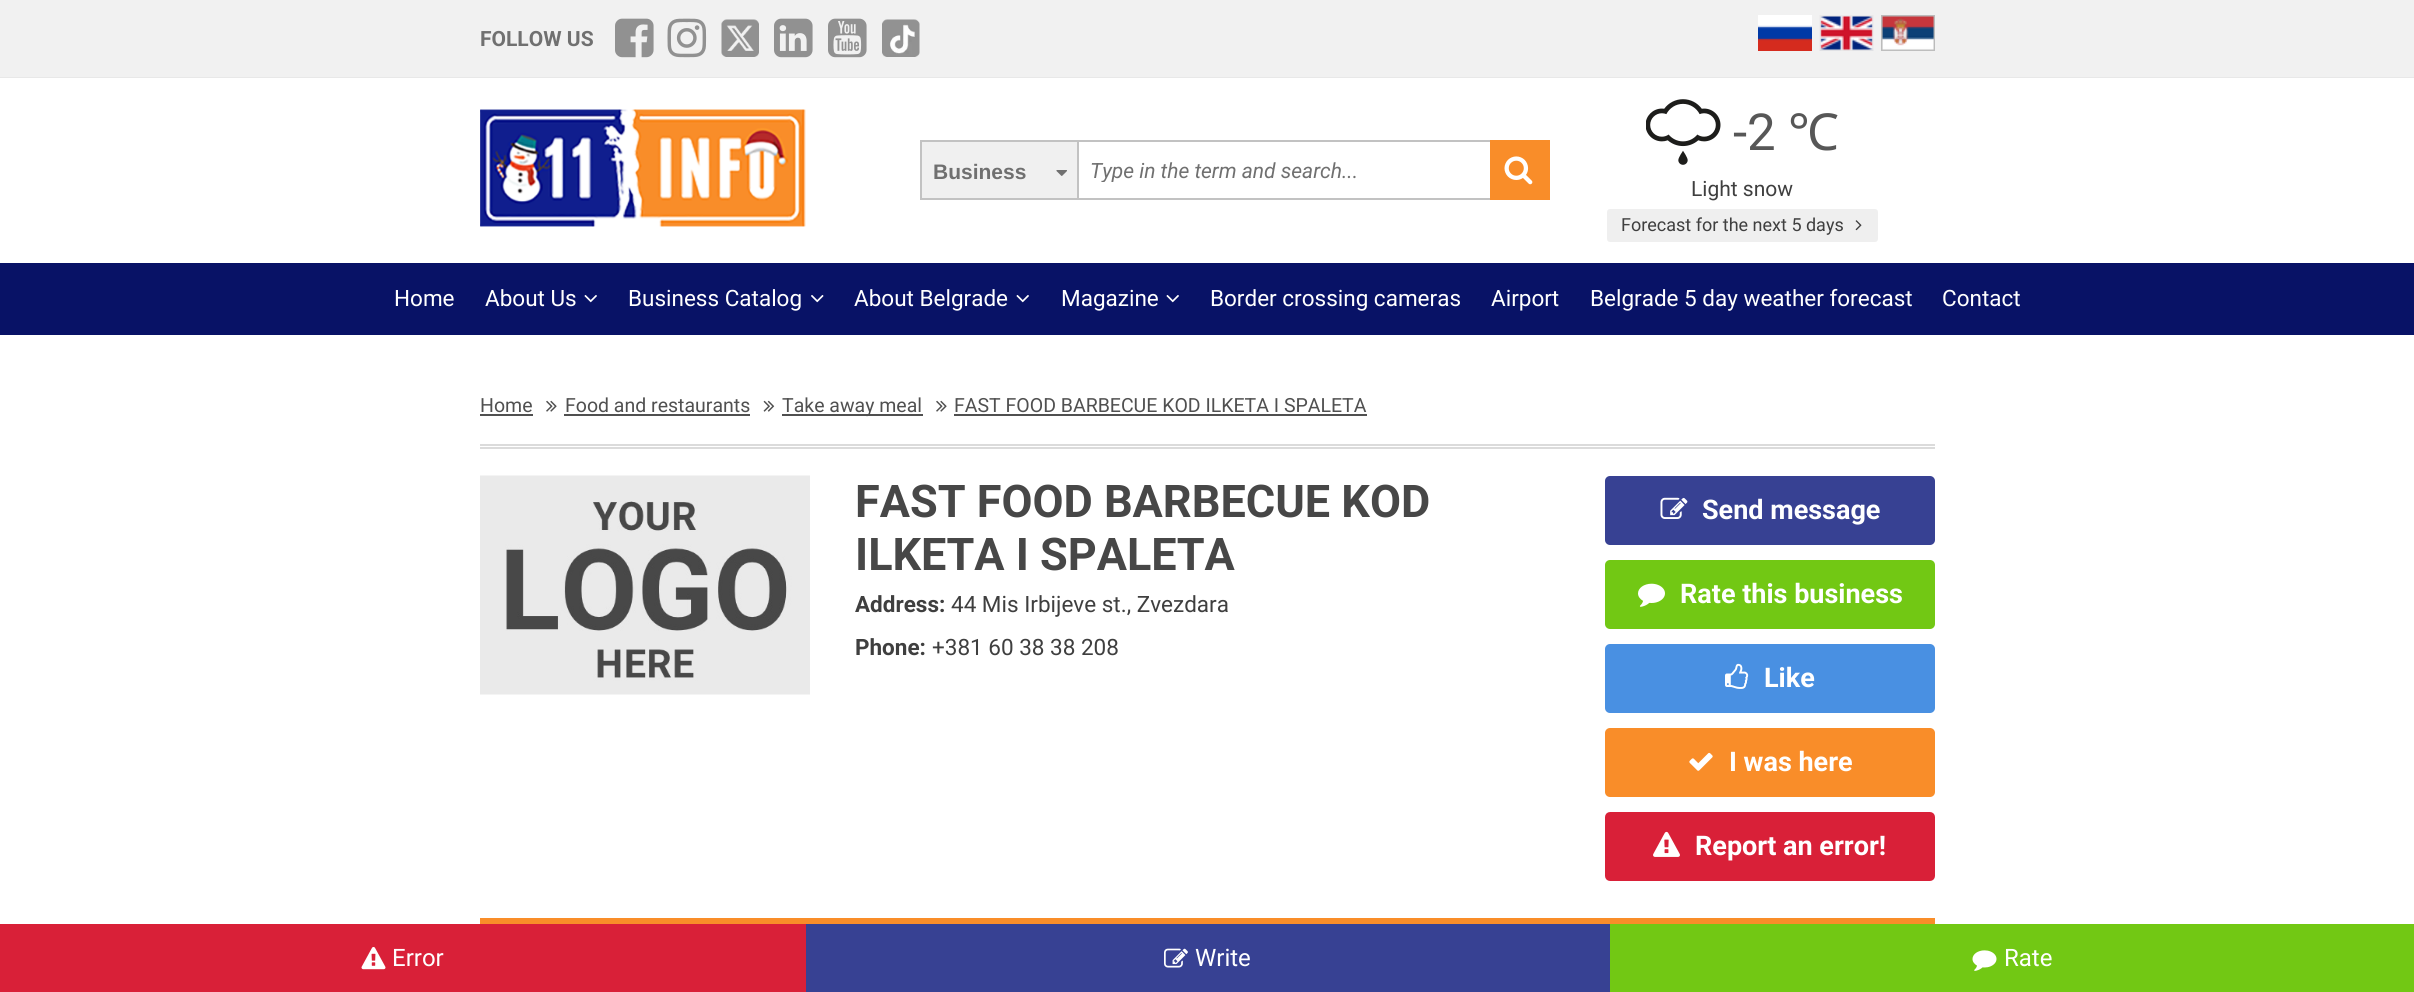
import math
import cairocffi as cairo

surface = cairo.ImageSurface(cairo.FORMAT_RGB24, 2414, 992)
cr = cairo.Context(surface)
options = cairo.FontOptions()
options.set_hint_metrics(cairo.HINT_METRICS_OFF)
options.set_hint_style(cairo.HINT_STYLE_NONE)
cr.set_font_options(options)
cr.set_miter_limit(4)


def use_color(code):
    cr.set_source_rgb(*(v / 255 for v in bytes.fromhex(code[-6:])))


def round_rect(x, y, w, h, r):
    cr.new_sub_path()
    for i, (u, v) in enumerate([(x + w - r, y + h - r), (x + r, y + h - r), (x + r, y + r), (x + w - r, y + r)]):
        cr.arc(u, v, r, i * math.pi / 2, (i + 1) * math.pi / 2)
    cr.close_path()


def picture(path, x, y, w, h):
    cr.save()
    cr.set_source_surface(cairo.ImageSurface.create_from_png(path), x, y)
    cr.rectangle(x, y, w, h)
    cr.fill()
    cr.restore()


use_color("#ffffff")
cr.paint()
use_color("#f1f1f1")
cr.rectangle(0, 0, 2414, 77)
cr.fill()
use_color("#e8e8e8")
cr.rectangle(0, 77, 2414, 1)
cr.fill()
cr.select_font_face("Roboto", cairo.FONT_SLANT_NORMAL, cairo.FONT_WEIGHT_BOLD)
cr.set_font_size(21)
use_color("#707070")
cr.move_to(480, 46)
cr.show_text("FOLLOW US")
picture("img1.png", 615, 18, 39, 40)
picture("img2.png", 667, 18, 40, 40)
picture("img3.png", 721, 19, 38, 38)
picture("img4.png", 774, 18, 39, 40)
picture("img5.png", 828, 18, 39, 40)
picture("img6.png", 882, 19, 38, 38)
picture("img7.png", 1758, 15, 54, 36)
picture("img8.png", 1819, 15, 55, 36)
picture("img9.png", 1881, 15, 54, 36)
picture("img10.png", 480, 109, 326, 118)
use_color("#f0f0f0")
cr.rectangle(922, 142, 155, 56)
cr.fill()
picture("img11.png", 1056, 170, 11, 6)
use_color("#c2c2c2")
cr.rectangle(920, 140, 157, 2)
cr.fill()
cr.rectangle(920, 198, 157, 2)
cr.fill()
cr.rectangle(920, 140, 2, 60)
cr.fill()
cr.select_font_face("Liberation Sans", cairo.FONT_SLANT_NORMAL, cairo.FONT_WEIGHT_BOLD)
use_color("#707070")
cr.move_to(933, 179)
cr.show_text("Business")
cr.rectangle(1078, 141, 471, 58)
use_color("#c2c2c2")
cr.stroke()
cr.save()
cr.rectangle(1091, 158, 364, 24)
cr.clip()
cr.select_font_face("Roboto", cairo.FONT_SLANT_ITALIC)
use_color("#707070")
cr.move_to(1090, 178)
cr.show_text("Type in the term and search...")
cr.restore()
use_color("#f98d29")
cr.rectangle(1490, 140, 60, 60)
cr.fill()
picture("img12.png", 1504, 156, 29, 29)
picture("img13.png", 1646, 99, 75, 66)
cr.select_font_face("Roboto")
cr.set_font_size(51)
use_color("#575757")
cr.move_to(1733, 150)
cr.show_text("-2")
cr.select_font_face("Noto Sans")
cr.move_to(1788, 150)
cr.show_text("℃")
cr.select_font_face("Roboto")
cr.set_font_size(21)
use_color("#3f3f3f")
cr.move_to(1691, 196)
cr.show_text("Light snow")
use_color("#efefef")
round_rect(1607, 209, 271, 33, 3)
cr.fill()
cr.set_font_size(18)
use_color("#3f3f3f")
cr.move_to(1621, 231)
cr.show_text("Forecast for the next 5 days")
picture("img14.png", 1855, 220, 7, 11)
use_color("#081266")
cr.rectangle(0, 263, 2414, 72)
cr.fill()
cr.set_font_size(22.5)
use_color("#ffffff")
cr.move_to(394, 306)
cr.show_text("Home")
cr.move_to(485, 306)
cr.show_text("About Us")
picture("img15.png", 584, 295, 13, 8)
cr.move_to(628, 306)
cr.show_text("Business Catalog")
picture("img16.png", 811, 295, 13, 8)
cr.move_to(854, 306)
cr.show_text("About Belgrade")
picture("img15.png", 1016, 295, 13, 8)
cr.move_to(1061, 306)
cr.show_text("Magazine")
picture("img15.png", 1166, 295, 13, 8)
cr.move_to(1210, 306)
cr.show_text("Border crossing cameras")
cr.move_to(1491, 306)
cr.show_text("Airport")
cr.move_to(1590, 306)
cr.show_text("Belgrade 5 day weather forecast")
cr.move_to(1942, 306)
cr.show_text("Contact")
cr.set_font_size(19.5)
use_color("#505050")
cr.move_to(480, 412)
cr.show_text("Home")
cr.rectangle(480, 414, 53, 2)
cr.fill()
picture("img17.png", 546, 400, 11, 12)
cr.move_to(565, 412)
cr.show_text("Food and restaurants")
cr.rectangle(564, 414, 186, 2)
cr.fill()
picture("img18.png", 763, 400, 12, 12)
cr.rectangle(782, 414, 141, 2)
cr.fill()
cr.move_to(782, 412)
cr.show_text("Take away meal")
picture("img17.png", 936, 400, 11, 12)
cr.move_to(954, 412)
cr.show_text("FAST FOOD BARBECUE KOD ILKETA I SPALETA")
cr.rectangle(954, 414, 413, 2)
cr.fill()
use_color("#dbdbdb")
cr.rectangle(480, 444, 1455, 2)
cr.fill()
cr.rectangle(480, 447, 1455, 2)
cr.fill()
picture("img19.png", 480, 475, 330, 220)
cr.select_font_face("Roboto", cairo.FONT_SLANT_NORMAL, cairo.FONT_WEIGHT_BOLD)
cr.set_font_size(45)
use_color("#474747")
cr.move_to(855, 517)
cr.show_text("FAST FOOD BARBECUE KOD")
cr.move_to(855, 570)
cr.show_text("ILKETA I SPALETA")
cr.set_font_size(22.5)
use_color("#3f3f3f")
cr.move_to(855, 612)
cr.show_text("Address:")
cr.select_font_face("Roboto")
cr.move_to(951, 612)
cr.show_text("44 Mis Irbijeve st., Zvezdara")
cr.select_font_face("Roboto", cairo.FONT_SLANT_NORMAL, cairo.FONT_WEIGHT_BOLD)
cr.move_to(855, 655)
cr.show_text("Phone:")
cr.select_font_face("Roboto")
cr.move_to(932, 655)
cr.show_text("+381 60 38 38 208")
use_color("#374193")
round_rect(1605, 476, 330, 69, 5)
cr.fill()
picture("img20.png", 1660, 497, 28, 22)
cr.select_font_face("Roboto", cairo.FONT_SLANT_NORMAL, cairo.FONT_WEIGHT_BOLD)
cr.set_font_size(27)
use_color("#ffffff")
cr.move_to(1702, 519)
cr.show_text("Send message")
use_color("#72c814")
round_rect(1605, 560, 330, 69, 5)
cr.fill()
picture("img21.png", 1638, 583, 27, 24)
use_color("#ffffff")
cr.move_to(1680, 603)
cr.show_text("Rate this business")
use_color("#4990e2")
round_rect(1605, 644, 330, 69, 5)
cr.fill()
picture("img22.png", 1725, 663, 24, 26)
use_color("#ffffff")
cr.move_to(1764, 687)
cr.show_text("Like")
use_color("#f98d29")
round_rect(1605, 728, 330, 69, 5)
cr.fill()
picture("img23.png", 1689, 752, 24, 19)
use_color("#ffffff")
cr.move_to(1729, 771)
cr.show_text("I was here")
use_color("#d92038")
round_rect(1606.5, 813.5, 327, 66, 3.5)
cr.fill_preserve()
cr.set_line_width(3)
cr.stroke()
picture("img24.png", 1653, 831, 27, 26)
use_color("#ffffff")
cr.move_to(1695, 855)
cr.show_text("Report an error!")
use_color("#f98d29")
cr.rectangle(480, 918, 1455, 6)
cr.fill()
use_color("#d92038")
cr.rectangle(0, 924, 806, 68)
cr.fill()
picture("img25.png", 361, 947, 25, 23)
cr.select_font_face("Roboto")
cr.set_font_size(24)
use_color("#ffffff")
cr.move_to(392, 966)
cr.show_text("Error")
use_color("#374193")
cr.rectangle(806, 924, 804, 68)
cr.fill()
picture("img26.png", 1164, 948, 24, 20)
use_color("#ffffff")
cr.move_to(1195, 966)
cr.show_text("Write")
use_color("#72c814")
cr.rectangle(1610, 924, 804, 68)
cr.fill()
picture("img27.png", 1972, 950, 25, 21)
use_color("#ffffff")
cr.move_to(2004, 966)
cr.show_text("Rate")
surface.write_to_png("result.png")
